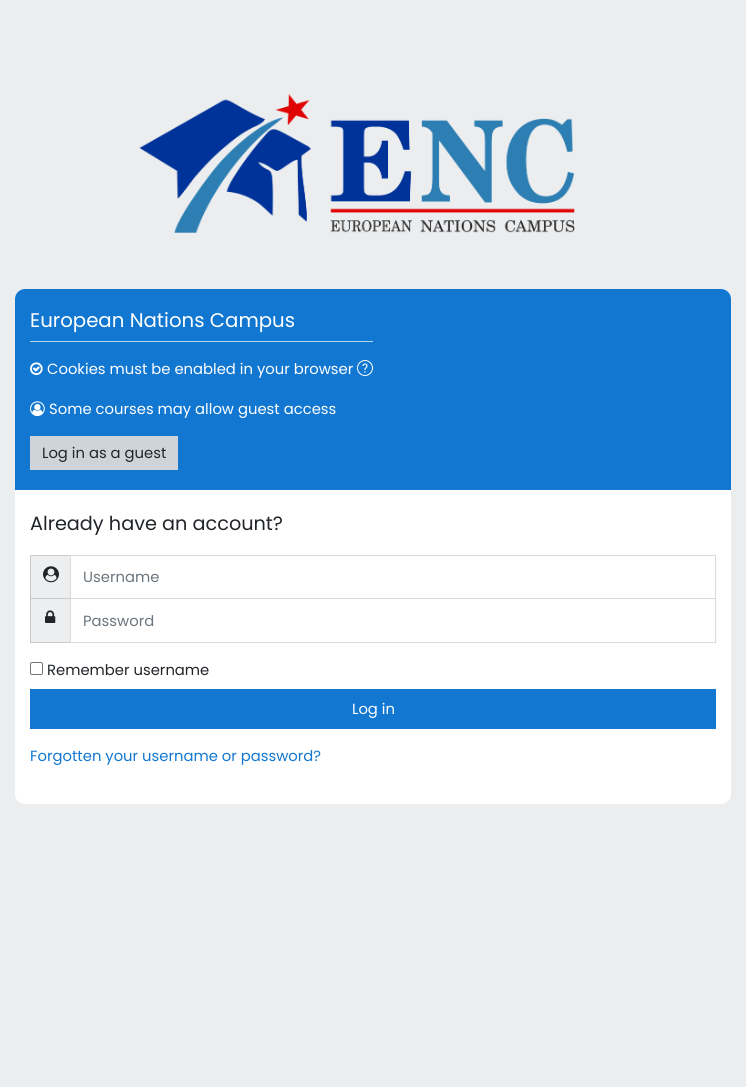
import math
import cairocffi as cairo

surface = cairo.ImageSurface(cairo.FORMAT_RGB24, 746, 1087)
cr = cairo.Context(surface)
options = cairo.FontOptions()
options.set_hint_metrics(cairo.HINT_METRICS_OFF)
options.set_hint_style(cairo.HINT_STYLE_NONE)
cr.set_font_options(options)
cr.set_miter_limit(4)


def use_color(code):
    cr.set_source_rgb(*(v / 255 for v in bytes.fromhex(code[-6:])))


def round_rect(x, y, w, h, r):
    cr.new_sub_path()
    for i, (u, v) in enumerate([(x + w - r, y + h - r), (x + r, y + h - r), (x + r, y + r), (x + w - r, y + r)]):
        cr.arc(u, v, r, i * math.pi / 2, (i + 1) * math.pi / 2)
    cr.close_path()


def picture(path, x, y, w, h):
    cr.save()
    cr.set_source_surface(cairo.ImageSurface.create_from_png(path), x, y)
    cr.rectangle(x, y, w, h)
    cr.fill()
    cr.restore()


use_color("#ecedee")
cr.paint()
picture("img1.png", 139, 94, 436, 139)
use_color("#ffffff")
round_rect(15, 289, 716, 515, 10)
cr.fill()
use_color("#1177d1")
cr.new_path()
cr.move_to(25, 289)
cr.line_to(721, 289)
cr.curve_to(726.5, 289, 731, 293.5, 731, 299)
cr.line_to(731, 490)
cr.line_to(15, 490)
cr.line_to(15, 299)
cr.curve_to(15, 293.5, 19.5, 289, 25, 289)
cr.close_path()
cr.fill()
cr.select_font_face("Poppins")
cr.set_font_size(19.75)
use_color("#ffffff")
cr.move_to(30, 327)
cr.show_text("European Nations Campus")
use_color("#b8d6f1")
cr.rectangle(30, 341, 343, 1)
cr.fill()
picture("img2.png", 30, 362, 13, 14)
cr.set_font_size(14.8)
use_color("#ffffff")
cr.move_to(47, 374)
cr.show_text("Cookies must be enabled in your browser")
picture("img3.png", 357, 360, 16, 16)
picture("img4.png", 30, 401, 15, 16)
cr.move_to(49, 414)
cr.show_text("Some courses may allow guest access")
use_color("#ced4da")
cr.rectangle(30, 436, 148, 34)
cr.fill()
use_color("#212529")
cr.move_to(42, 458)
cr.show_text("Log in as a guest")
cr.set_font_size(19.25)
cr.move_to(30, 530)
cr.show_text("Already have an account?")
use_color("#eceeef")
cr.rectangle(30, 555, 40, 88)
cr.fill()
use_color("#c9cacb")
cr.new_path()
cr.move_to(30, 555)
cr.line_to(70, 555)
cr.line_to(70, 556)
cr.line_to(31, 556)
cr.close_path()
cr.move_to(70, 599)
cr.line_to(30, 599)
cr.line_to(31, 598)
cr.line_to(70, 598)
cr.close_path()
cr.fill()
cr.set_source_rgba(0, 0, 0, 0.15)
cr.new_path()
cr.move_to(30, 599)
cr.line_to(30, 555)
cr.line_to(31, 556)
cr.line_to(31, 598)
cr.close_path()
cr.fill()
picture("img5.png", 43, 566, 16, 17)
cr.rectangle(70.5, 555.5, 645, 43)
use_color("#d9d9d9")
cr.set_line_width(1)
cr.stroke()
cr.set_font_size(14.8)
use_color("#6c757d")
cr.move_to(83, 582)
cr.show_text("Username")
use_color("#c9cacb")
cr.new_path()
cr.move_to(70, 643)
cr.line_to(30, 643)
cr.line_to(31, 642)
cr.line_to(70, 642)
cr.close_path()
cr.fill()
cr.set_source_rgba(0, 0, 0, 0.15)
cr.new_path()
cr.move_to(30, 643)
cr.line_to(30, 599)
cr.line_to(31, 599)
cr.line_to(31, 642)
cr.close_path()
cr.fill()
picture("img6.png", 45, 610, 11, 13)
use_color("#d9d9d9")
cr.new_path()
cr.move_to(716, 599)
cr.line_to(716, 643)
cr.line_to(715, 642)
cr.line_to(715, 599)
cr.close_path()
cr.fill()
cr.set_source_rgba(0, 0, 0, 0.15)
cr.new_path()
cr.move_to(716, 643)
cr.line_to(70, 643)
cr.line_to(71, 642)
cr.line_to(715, 642)
cr.close_path()
cr.fill()
cr.new_path()
cr.move_to(70, 643)
cr.line_to(70, 599)
cr.line_to(71, 599)
cr.line_to(71, 642)
cr.close_path()
cr.fill()
use_color("#6c757d")
cr.move_to(83, 626)
cr.show_text("Password")
round_rect(30.5, 662.5, 12, 12, 1.5)
use_color("#767676")
cr.stroke()
use_color("#212529")
cr.move_to(47, 675)
cr.show_text("Remember username")
use_color("#1177d1")
cr.rectangle(30, 689, 686, 40)
cr.fill()
use_color("#ffffff")
cr.move_to(352, 714)
cr.show_text("Log in")
use_color("#1177d1")
cr.move_to(30, 761)
cr.show_text("Forgotten your username or password?")
surface.write_to_png("result.png")
